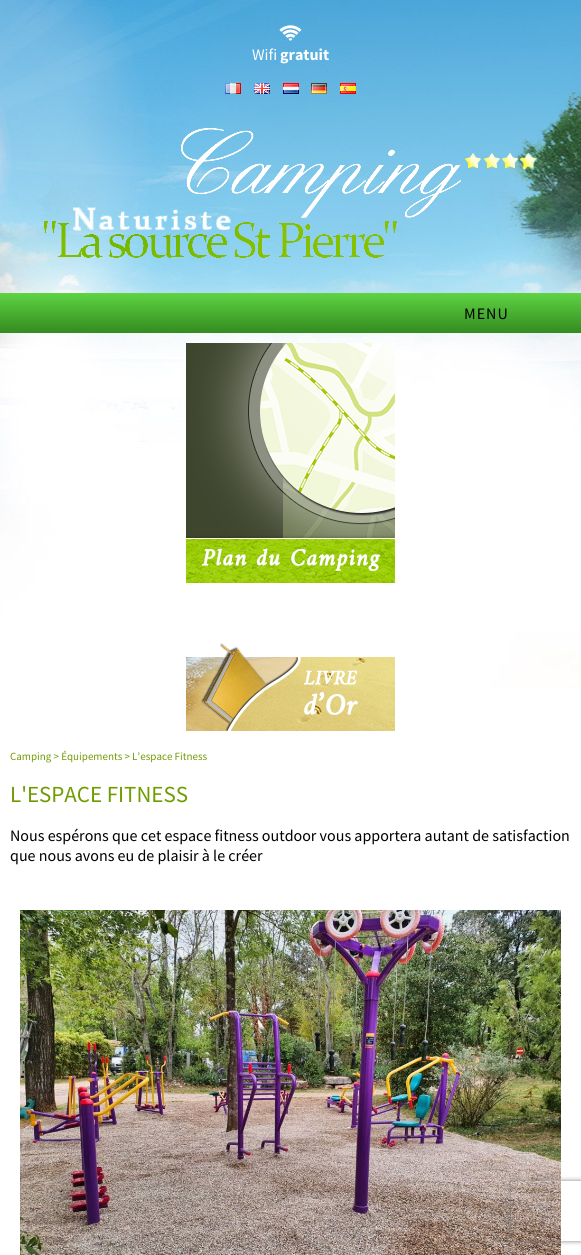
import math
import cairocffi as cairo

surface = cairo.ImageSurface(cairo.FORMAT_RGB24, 581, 1255)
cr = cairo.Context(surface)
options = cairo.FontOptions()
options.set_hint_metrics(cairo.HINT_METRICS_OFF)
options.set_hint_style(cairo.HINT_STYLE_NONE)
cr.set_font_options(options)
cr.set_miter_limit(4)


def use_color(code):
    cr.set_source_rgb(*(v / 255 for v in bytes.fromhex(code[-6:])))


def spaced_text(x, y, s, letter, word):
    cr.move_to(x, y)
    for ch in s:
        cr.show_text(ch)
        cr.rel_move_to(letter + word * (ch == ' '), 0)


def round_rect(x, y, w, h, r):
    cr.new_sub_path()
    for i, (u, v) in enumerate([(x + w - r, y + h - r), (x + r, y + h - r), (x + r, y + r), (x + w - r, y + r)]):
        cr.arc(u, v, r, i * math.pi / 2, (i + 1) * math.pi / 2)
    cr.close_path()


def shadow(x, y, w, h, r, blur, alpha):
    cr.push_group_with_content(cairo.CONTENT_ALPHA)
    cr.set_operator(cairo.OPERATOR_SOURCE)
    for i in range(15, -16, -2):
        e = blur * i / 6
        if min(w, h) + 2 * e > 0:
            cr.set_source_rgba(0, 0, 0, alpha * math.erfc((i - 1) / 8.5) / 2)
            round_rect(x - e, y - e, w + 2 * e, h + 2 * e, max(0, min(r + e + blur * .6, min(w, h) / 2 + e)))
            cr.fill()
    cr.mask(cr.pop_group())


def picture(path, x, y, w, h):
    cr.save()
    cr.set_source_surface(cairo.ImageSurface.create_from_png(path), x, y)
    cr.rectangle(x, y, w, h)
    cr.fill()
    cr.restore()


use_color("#ffffff")
cr.paint()
picture("img1.png", 0, 0, 581, 688)
picture("img2.png", 279, 25, 23, 16)
cr.select_font_face("Source Sans Pro")
cr.set_font_size(16)
use_color("#ffffff")
cr.move_to(252, 60)
cr.show_text("Wifi")
cr.select_font_face("Source Sans Pro", cairo.FONT_SLANT_NORMAL, cairo.FONT_WEIGHT_BOLD)
cr.move_to(280, 60)
cr.show_text("gratuit")
picture("img3.png", 225, 83, 16, 11)
picture("img4.png", 254, 83, 16, 11)
picture("img5.png", 283, 83, 16, 11)
picture("img6.png", 311, 83, 16, 11)
picture("img7.png", 340, 83, 16, 11)
picture("img8.png", 44, 128, 493, 130)
gradient = cairo.LinearGradient(291, 293, 291, 333)
gradient.add_color_stop_rgba(0, 0.369, 0.831, 0.263, 1)
gradient.add_color_stop_rgba(1, 0.204, 0.545, 0.125, 1)
cr.set_source(gradient)
cr.rectangle(0, 293, 581, 40)
cr.fill()
cr.select_font_face("Source Sans Pro")
use_color("#000000")
spaced_text(464, 319, "MENU", 1, 0)
picture("img9.png", 186, 343, 209, 240)
picture("img10.png", 186, 643, 209, 88)
cr.set_font_size(11)
use_color("#709b01")
cr.move_to(10, 760)
cr.show_text("Camping > Équipements > L'espace Fitness")
cr.set_font_size(23)
cr.move_to(10, 802)
cr.show_text("L'ESPACE FITNESS")
cr.set_font_size(16)
use_color("#000000")
cr.move_to(10, 841)
cr.show_text("Nous espérons que cet espace fitness outdoor vous apportera autant de satisfaction")
cr.move_to(10, 861)
cr.show_text("que nous avons eu de plaisir à le créer")
picture("img11.png", 20, 910, 541, 345)
cr.save()
cr.set_fill_rule(cairo.FILL_RULE_EVEN_ODD)
cr.new_path()
cr.move_to(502, 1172)
cr.line_to(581, 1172)
cr.line_to(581, 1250)
cr.line_to(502, 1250)
cr.close_path()
cr.move_to(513, 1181)
cr.line_to(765, 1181)
cr.curve_to(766, 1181, 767, 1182, 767, 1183)
cr.line_to(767, 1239)
cr.curve_to(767, 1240, 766, 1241, 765, 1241)
cr.line_to(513, 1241)
cr.curve_to(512, 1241, 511, 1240, 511, 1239)
cr.line_to(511, 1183)
cr.curve_to(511, 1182, 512, 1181, 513, 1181)
cr.close_path()
cr.clip()
use_color("#808080")
shadow(511, 1181, 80, 60, 2, 2.5, 1)
cr.restore()
surface.write_to_png("result.png")
